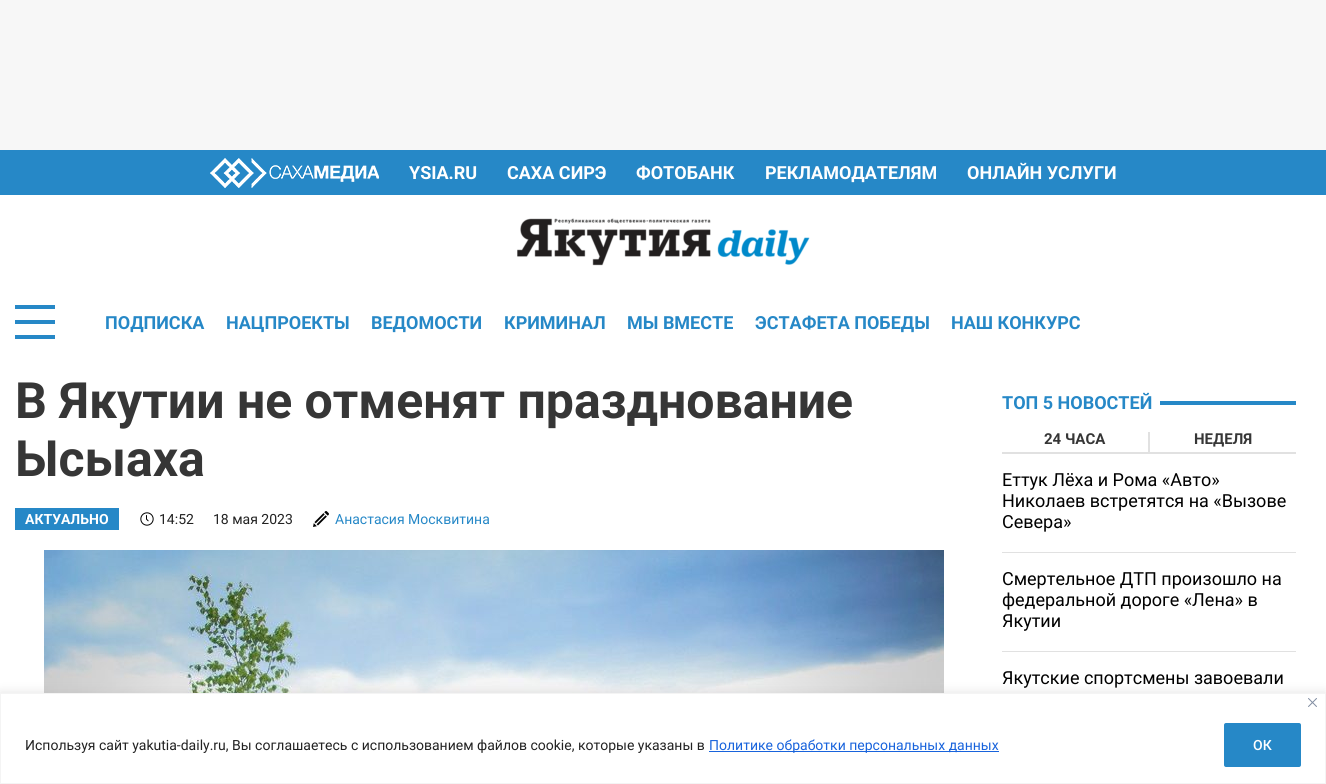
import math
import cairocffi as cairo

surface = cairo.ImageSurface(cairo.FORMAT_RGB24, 1326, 784)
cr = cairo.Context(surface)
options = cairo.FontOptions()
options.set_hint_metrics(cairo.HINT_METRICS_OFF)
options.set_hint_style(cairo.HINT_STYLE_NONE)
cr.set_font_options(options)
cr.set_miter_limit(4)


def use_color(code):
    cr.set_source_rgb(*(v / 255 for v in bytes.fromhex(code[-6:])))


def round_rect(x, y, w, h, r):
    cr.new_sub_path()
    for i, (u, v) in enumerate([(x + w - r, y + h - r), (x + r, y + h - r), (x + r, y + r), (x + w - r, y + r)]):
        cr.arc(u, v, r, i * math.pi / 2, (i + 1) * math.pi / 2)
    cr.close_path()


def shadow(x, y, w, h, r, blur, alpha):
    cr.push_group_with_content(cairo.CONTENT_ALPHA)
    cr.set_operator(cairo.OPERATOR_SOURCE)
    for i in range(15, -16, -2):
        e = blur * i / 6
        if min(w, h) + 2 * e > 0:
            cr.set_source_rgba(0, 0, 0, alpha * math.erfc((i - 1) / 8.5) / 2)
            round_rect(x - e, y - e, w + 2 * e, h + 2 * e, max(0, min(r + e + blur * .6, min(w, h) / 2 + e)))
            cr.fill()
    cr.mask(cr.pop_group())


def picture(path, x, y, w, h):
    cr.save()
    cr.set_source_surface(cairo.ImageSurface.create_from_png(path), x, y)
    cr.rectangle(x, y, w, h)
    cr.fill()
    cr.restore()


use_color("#ffffff")
cr.paint()
use_color("#f7f7f7")
cr.rectangle(0, 0, 1326, 150)
cr.fill()
use_color("#2688c7")
cr.rectangle(0, 150, 1326, 45)
cr.fill()
picture("img1.png", 210, 158, 169, 30)
cr.select_font_face("Roboto", cairo.FONT_SLANT_NORMAL, cairo.FONT_WEIGHT_BOLD)
cr.set_font_size(18)
use_color("#ffffff")
cr.move_to(409, 179)
cr.show_text("YSIA.RU")
cr.move_to(507, 179)
cr.show_text("САХА СИРЭ")
cr.move_to(636, 179)
cr.show_text("ФОТОБАНК")
cr.move_to(765, 179)
cr.show_text("РЕКЛАМОДАТЕЛЯМ")
cr.move_to(967, 179)
cr.show_text("ОНЛАЙН УСЛУГИ")
picture("img2.png", 517, 218, 293, 48)
use_color("#2688c7")
cr.rectangle(15, 305, 40, 4)
cr.fill()
cr.rectangle(15, 320, 40, 4)
cr.fill()
cr.rectangle(15, 335, 40, 4)
cr.fill()
cr.move_to(105, 329)
cr.show_text("ПОДПИСКА")
cr.move_to(226, 329)
cr.show_text("НАЦПРОЕКТЫ")
cr.move_to(371, 329)
cr.show_text("ВЕДОМОСТИ")
cr.move_to(504, 329)
cr.show_text("КРИМИНАЛ")
cr.move_to(627, 329)
cr.show_text("МЫ ВМЕСТЕ")
cr.move_to(755, 329)
cr.show_text("ЭСТАФЕТА ПОБЕДЫ")
cr.move_to(951, 329)
cr.show_text("НАШ КОНКУРС")
cr.set_font_size(50)
use_color("#363636")
cr.move_to(15, 418)
cr.show_text("В Якутии не отменят празднование")
cr.move_to(15, 476)
cr.show_text("Ысыаха")
use_color("#2688c7")
cr.rectangle(15, 508, 104, 22)
cr.fill()
cr.set_font_size(14)
use_color("#ffffff")
cr.move_to(25, 524)
cr.show_text("АКТУАЛЬНО")
picture("img3.png", 140, 512, 14, 14)
cr.select_font_face("Roboto")
use_color("#222222")
cr.move_to(159, 524)
cr.show_text("14:52")
cr.move_to(213, 524)
cr.show_text("18 мая 2023")
picture("img4.png", 313, 511, 16, 16)
use_color("#2688c7")
cr.move_to(335, 524)
cr.show_text("Анастасия Москвитина")
picture("img5.png", 44, 550, 900, 143)
cr.select_font_face("Roboto", cairo.FONT_SLANT_NORMAL, cairo.FONT_WEIGHT_BOLD)
cr.set_font_size(18)
cr.move_to(1002, 409)
cr.show_text("ТОП 5 НОВОСТЕЙ")
cr.rectangle(1160, 401, 136, 4)
cr.fill()
use_color("#e1e1e1")
cr.rectangle(1002, 452, 294, 2)
cr.fill()
cr.rectangle(1148, 432, 2, 20)
cr.fill()
cr.set_font_size(15)
use_color("#363636")
cr.move_to(1044, 444)
cr.show_text("24 ЧАСА")
cr.move_to(1194, 444)
cr.show_text("НЕДЕЛЯ")
use_color("#e1e1e1")
cr.rectangle(1002, 552, 294, 1)
cr.fill()
cr.select_font_face("Roboto")
cr.set_font_size(18)
use_color("#000000")
cr.move_to(1002, 486)
cr.show_text("Еттук Лёха и Рома «Авто»")
cr.move_to(1002, 507)
cr.show_text("Николаев встретятся на «Вызове")
cr.move_to(1002, 528)
cr.show_text("Севера»")
use_color("#e1e1e1")
cr.rectangle(1002, 651, 294, 1)
cr.fill()
use_color("#000000")
cr.move_to(1002, 585)
cr.show_text("Смертельное ДТП произошло на")
cr.move_to(1002, 606)
cr.show_text("федеральной дороге «Лена» в")
cr.move_to(1002, 627)
cr.show_text("Якутии")
cr.move_to(1002, 684)
cr.show_text("Якутские спортсмены завоевали")
use_color("#acabab")
shadow(0, 692, 1326, 91, 0, 5, 0.3)
use_color("#ffffff")
cr.rectangle(0.5, 693.5, 1325, 90)
cr.fill_preserve()
use_color("#f4f4f4")
cr.set_line_width(1)
cr.stroke()
picture("img6.png", 1308, 698, 9, 9)
cr.set_font_size(14)
use_color("#222222")
cr.move_to(25, 750)
cr.show_text("Используя сайт yakutia-daily.ru, Вы соглашаетесь с использованием файлов cookie, которые указаны в")
use_color("#1863dc")
cr.rectangle(709, 751, 290, 1)
cr.fill()
cr.move_to(709, 750)
cr.show_text("Политике обработки персональных данных")
use_color("#2688c7")
round_rect(1225, 724, 75, 42, 1)
cr.fill_preserve()
cr.set_line_width(2)
cr.stroke()
cr.select_font_face("Roboto Medium")
use_color("#ffffff")
cr.move_to(1253, 750)
cr.show_text("ОК")
surface.write_to_png("result.png")
